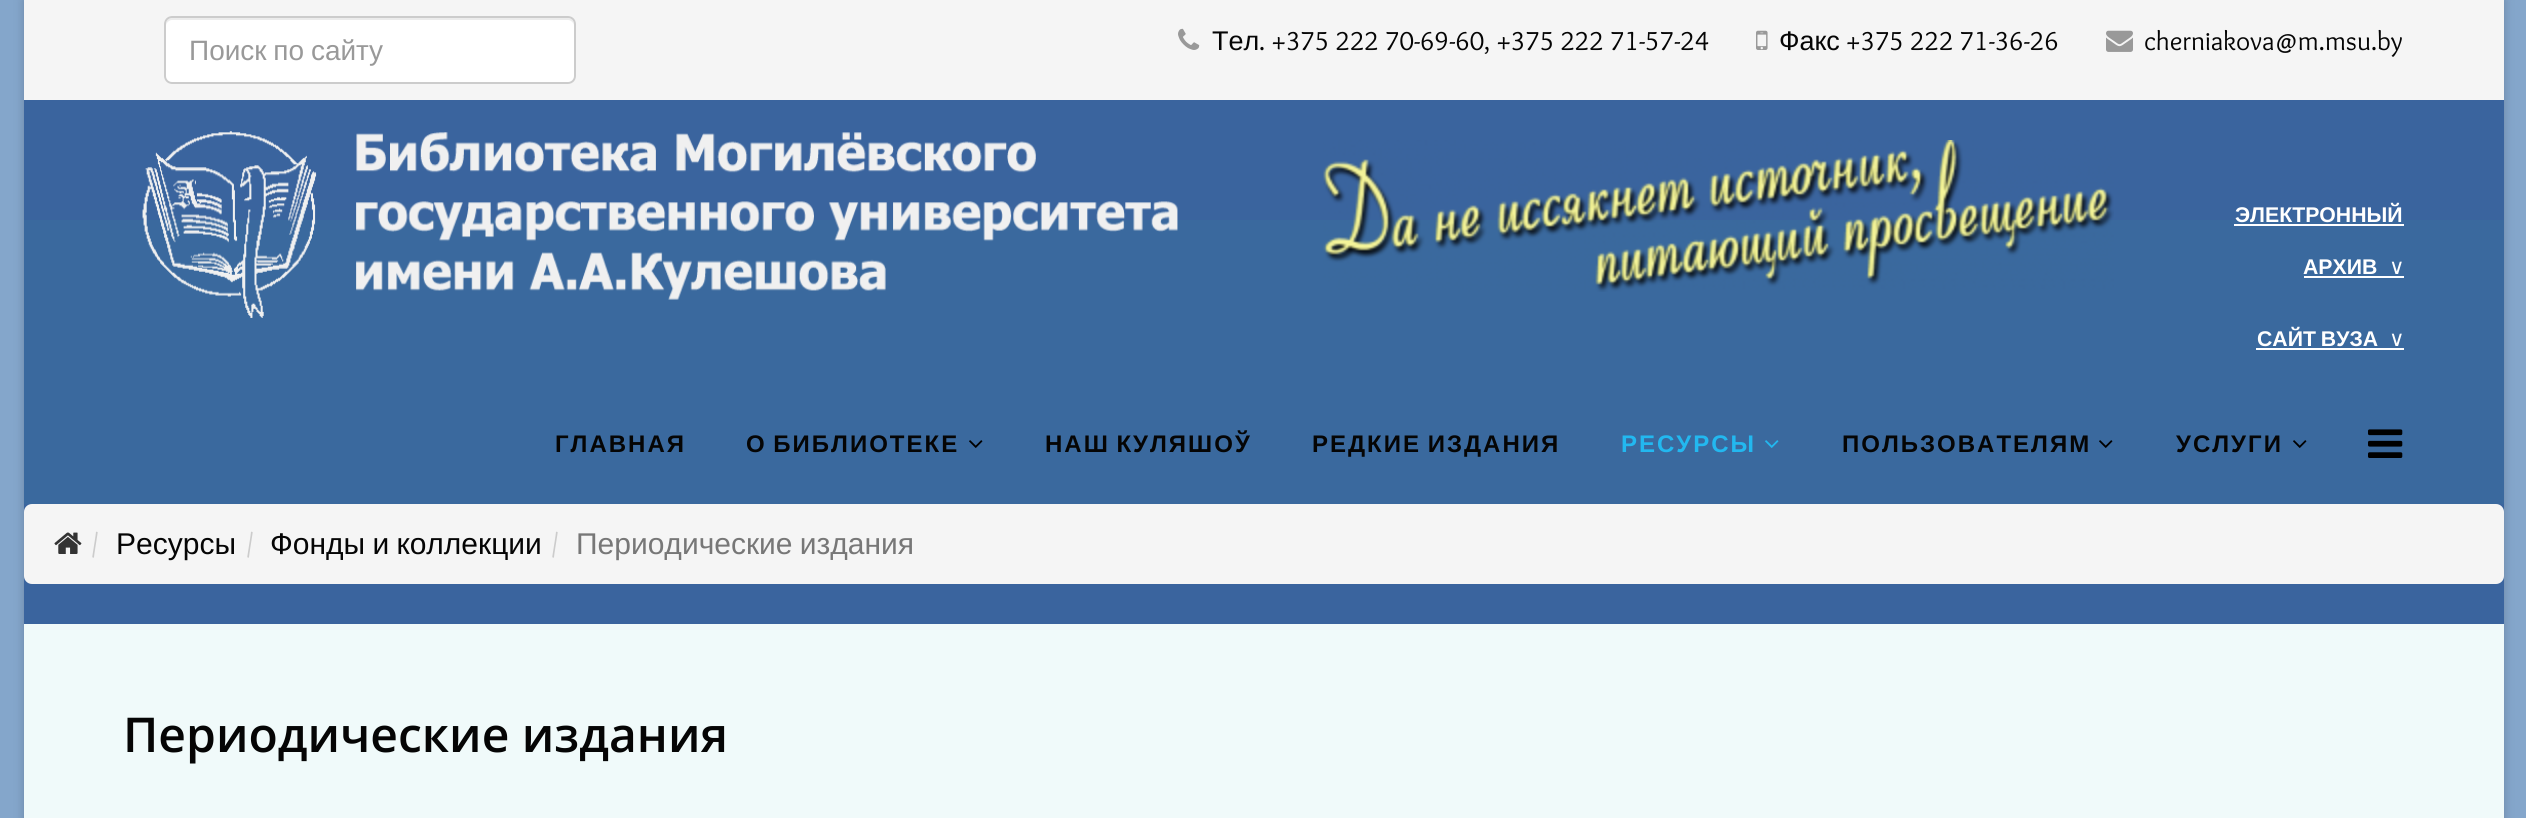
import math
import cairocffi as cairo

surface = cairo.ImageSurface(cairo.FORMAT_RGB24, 2526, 818)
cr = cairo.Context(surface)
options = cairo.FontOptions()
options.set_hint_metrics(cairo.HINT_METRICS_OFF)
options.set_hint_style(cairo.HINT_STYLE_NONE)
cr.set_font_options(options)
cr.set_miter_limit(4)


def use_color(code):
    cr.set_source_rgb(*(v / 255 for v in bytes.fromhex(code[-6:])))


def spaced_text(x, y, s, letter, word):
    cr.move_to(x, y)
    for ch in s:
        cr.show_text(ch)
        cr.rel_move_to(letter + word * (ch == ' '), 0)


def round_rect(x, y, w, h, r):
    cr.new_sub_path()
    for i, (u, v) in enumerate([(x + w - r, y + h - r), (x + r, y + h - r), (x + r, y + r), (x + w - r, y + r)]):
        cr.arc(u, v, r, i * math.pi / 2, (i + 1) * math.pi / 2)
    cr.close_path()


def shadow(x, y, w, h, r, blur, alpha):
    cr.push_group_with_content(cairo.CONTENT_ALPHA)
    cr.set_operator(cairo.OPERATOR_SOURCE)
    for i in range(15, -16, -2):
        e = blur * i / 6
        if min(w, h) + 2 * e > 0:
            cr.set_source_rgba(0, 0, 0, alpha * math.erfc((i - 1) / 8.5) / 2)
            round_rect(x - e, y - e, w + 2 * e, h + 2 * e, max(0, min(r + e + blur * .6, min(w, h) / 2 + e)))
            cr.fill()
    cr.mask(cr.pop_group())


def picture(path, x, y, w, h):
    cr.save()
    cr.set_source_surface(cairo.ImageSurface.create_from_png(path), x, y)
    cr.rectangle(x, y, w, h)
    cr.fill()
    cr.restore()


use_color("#84a6cb")
cr.paint()
use_color("#000000")
shadow(24, 0, 2480, 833, 0, 5, 0.2)
use_color("#f5f5f5")
cr.rectangle(24, 0, 2480, 100)
cr.fill()
use_color("#ffffff")
round_rect(164, 16, 412, 68, 8)
cr.fill()
use_color("#ececec")
cr.new_path()
cr.move_to(172, 20)
cr.line_to(568, 20)
cr.curve_to(571, 20, 574, 23, 574, 26)
cr.curve_to(574, 22, 573, 18, 568, 18)
cr.line_to(172, 18)
cr.curve_to(167, 18, 166, 22, 166, 26)
cr.curve_to(166, 23, 169, 20, 172, 20)
cr.close_path()
cr.fill()
round_rect(165, 17, 410, 66, 7)
use_color("#cccccc")
cr.stroke()
cr.select_font_face("Liberation Sans")
cr.set_font_size(28)
use_color("#999999")
spaced_text(189, 60, "Поиск по сайту", 0, -1)
picture("img1.png", 1178, 28, 22, 22)
cr.set_font_size(27)
use_color("#050505")
cr.move_to(1212, 50)
cr.show_text("Тел")
cr.select_font_face("Overlock")
cr.move_to(1259, 50)
cr.show_text(". +375 222 70-69-60, +375 222 71-57-24")
picture("img2.png", 1756, 30, 12, 20)
cr.select_font_face("Liberation Sans")
cr.move_to(1779, 50)
cr.show_text("Факс")
cr.select_font_face("Overlock")
cr.move_to(1846, 50)
cr.show_text("+375 222 71-36-26")
picture("img3.png", 2106, 30, 27, 22)
cr.move_to(2144, 50)
cr.show_text("cherniakova@m.msu.by")
use_color("#3a649e")
cr.rectangle(24, 100, 2480, 120)
cr.fill()
use_color("#3a699e")
cr.rectangle(24, 220, 2480, 284)
cr.fill()
picture("img4.png", 142, 131, 1036, 187)
picture("img5.png", 1323, 140, 791, 152)
cr.select_font_face("Liberation Sans", cairo.FONT_SLANT_NORMAL, cairo.FONT_WEIGHT_BOLD)
cr.set_font_size(21.25)
use_color("#ffffff")
cr.move_to(2235, 222)
cr.show_text("ЭЛЕКТРОННЫЙ")
cr.rectangle(2234, 224, 170, 2)
cr.fill()
cr.move_to(2303, 274)
cr.show_text("АРХИВ")
cr.select_font_face("DejaVu Sans")
cr.move_to(2389, 274)
cr.show_text("∨")
cr.rectangle(2304, 276, 100, 2)
cr.fill()
cr.select_font_face("Liberation Sans", cairo.FONT_SLANT_NORMAL, cairo.FONT_WEIGHT_BOLD)
spaced_text(2257, 346, "САЙТ ВУЗА", 0, -1)
cr.select_font_face("DejaVu Sans")
cr.move_to(2389, 346)
cr.show_text("∨")
cr.rectangle(2256, 348, 148, 2)
cr.fill()
cr.select_font_face("Liberation Sans", cairo.FONT_SLANT_NORMAL, cairo.FONT_WEIGHT_BOLD)
cr.set_font_size(24)
use_color("#050505")
spaced_text(555, 452, "ГЛАВНАЯ", 2, 0)
spaced_text(746, 452, "О БИБЛИОТЕКЕ", 2, -2)
picture("img6.png", 969, 440, 14, 8)
spaced_text(1045, 452, "НАШ КУЛЯШОЎ", 2, -2)
spaced_text(1312, 452, "РЕДКИЕ ИЗДАНИЯ", 2, -2)
use_color("#22b8f0")
spaced_text(1621, 452, "РЕСУРСЫ", 2, 0)
picture("img7.png", 1765, 440, 14, 8)
use_color("#050505")
spaced_text(1842, 452, "ПОЛЬЗОВАТЕЛЯМ", 2, 0)
picture("img6.png", 2099, 440, 14, 8)
spaced_text(2176, 452, "УСЛУГИ", 2, 0)
picture("img6.png", 2293, 440, 14, 8)
picture("img8.png", 2368, 429, 35, 29)
use_color("#3a649e")
cr.rectangle(24, 504, 2480, 120)
cr.fill()
use_color("#f5f5f5")
round_rect(24, 504, 2480, 80, 8)
cr.fill()
picture("img9.png", 54, 532, 28, 22)
cr.select_font_face("Overlock")
cr.set_font_size(30)
use_color("#cccccc")
cr.move_to(91, 554)
cr.show_text("/")
cr.select_font_face("Liberation Sans")
use_color("#050505")
cr.move_to(116, 554)
cr.show_text("Ресурсы")
cr.select_font_face("Overlock")
use_color("#cccccc")
cr.move_to(246, 554)
cr.show_text("/")
cr.select_font_face("Liberation Sans")
use_color("#050505")
spaced_text(270, 554, "Фонды и коллекции", 0, -1)
cr.select_font_face("Overlock")
use_color("#cccccc")
cr.move_to(551, 554)
cr.show_text("/")
cr.select_font_face("Liberation Sans")
use_color("#777777")
spaced_text(576, 554, "Периодические издания", 0, -1)
use_color("#f0fafa")
cr.rectangle(24, 624, 2480, 194)
cr.fill()
cr.select_font_face("Open Sans SemiBold")
cr.set_font_size(48)
use_color("#050505")
cr.move_to(123, 752)
cr.show_text("Периодические издания")
surface.write_to_png("result.png")
